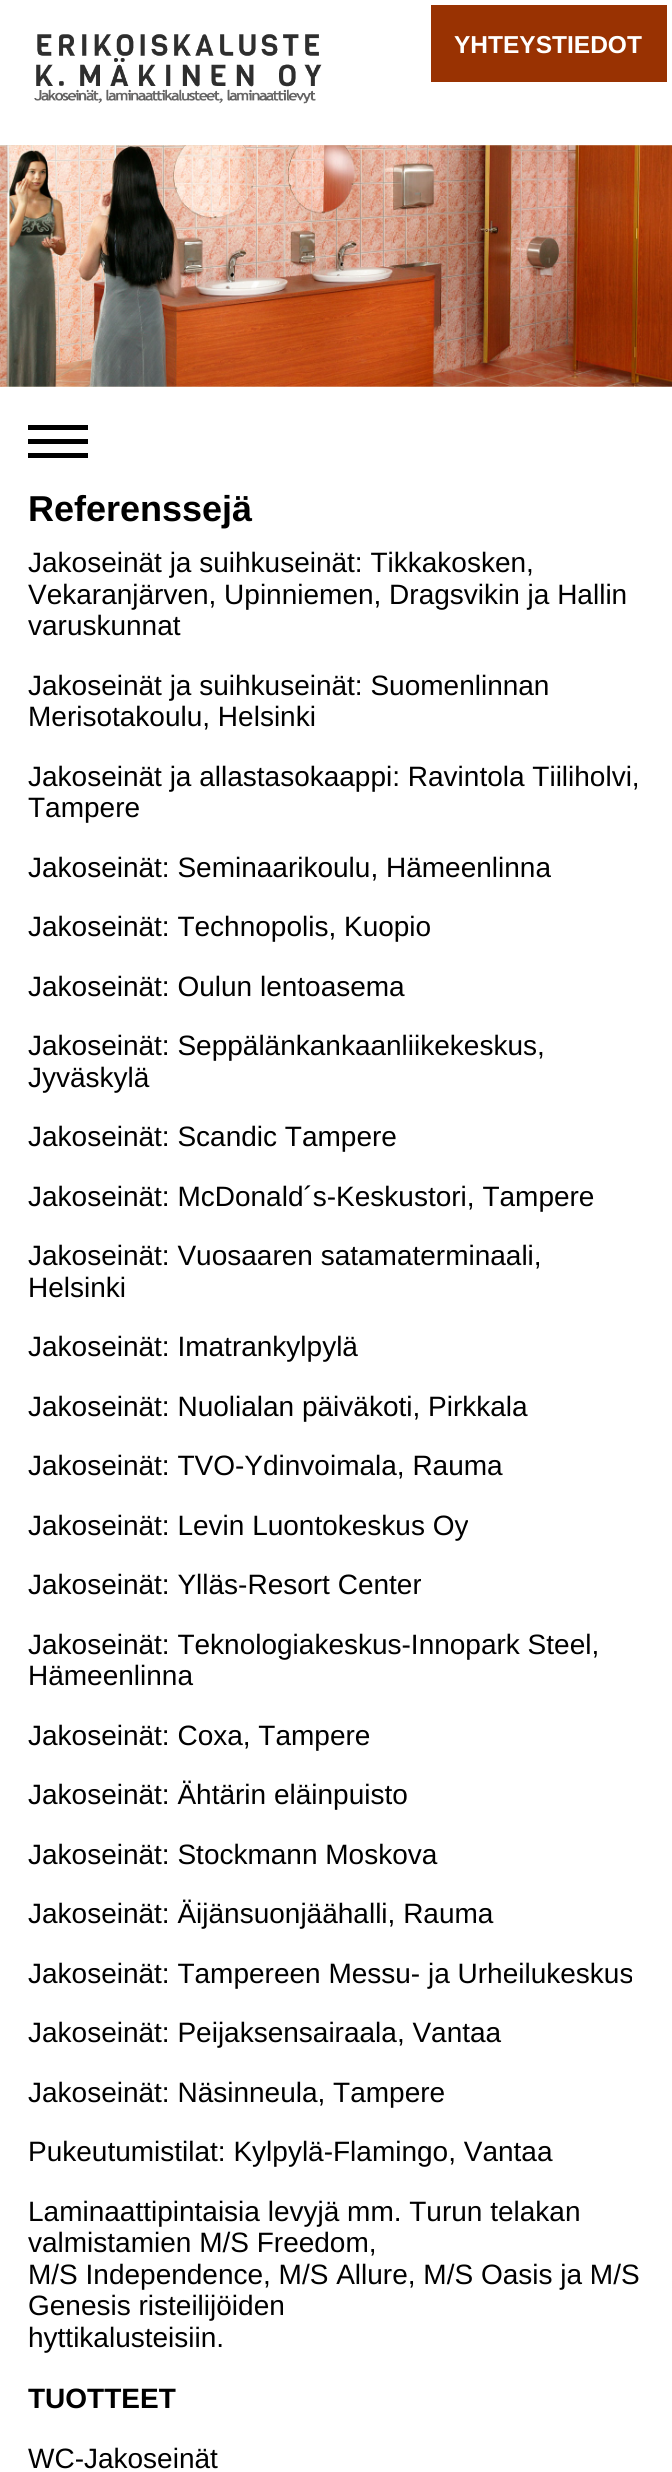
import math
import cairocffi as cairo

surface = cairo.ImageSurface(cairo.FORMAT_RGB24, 672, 2472)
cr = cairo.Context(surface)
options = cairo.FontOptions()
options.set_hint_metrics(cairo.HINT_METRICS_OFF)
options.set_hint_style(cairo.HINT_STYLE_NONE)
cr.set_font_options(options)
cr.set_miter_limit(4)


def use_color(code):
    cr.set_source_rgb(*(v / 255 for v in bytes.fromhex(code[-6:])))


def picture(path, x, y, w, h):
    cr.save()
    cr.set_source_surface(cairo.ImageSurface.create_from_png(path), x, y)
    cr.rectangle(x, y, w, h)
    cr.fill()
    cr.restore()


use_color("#ffffff")
cr.paint()
picture("img1.png", 0, 145, 672, 242)
picture("img2.png", 34, 34, 288, 70)
use_color("#993202")
cr.rectangle(431, 5, 236, 77)
cr.fill()
cr.select_font_face("Liberation Sans", cairo.FONT_SLANT_NORMAL, cairo.FONT_WEIGHT_BOLD)
cr.set_font_size(24.5)
use_color("#ffffff")
cr.move_to(454, 53)
cr.show_text("YHTEYSTIEDOT")
picture("img3.png", 0, 145, 672, 242)
use_color("#000000")
cr.rectangle(28, 425, 60, 5)
cr.fill()
cr.rectangle(28, 439, 60, 5)
cr.fill()
cr.rectangle(28, 453, 60, 5)
cr.fill()
cr.set_font_size(36)
cr.move_to(28, 521)
cr.show_text("Referenssejä")
cr.select_font_face("Liberation Sans")
cr.set_font_size(28)
cr.move_to(28, 572)
cr.show_text("Jakoseinät ja suihkuseinät: Tikkakosken,")
cr.move_to(28, 604)
cr.show_text("Vekaranjärven, Upinniemen, Dragsvikin ja Hallin")
cr.move_to(28, 635)
cr.show_text("varuskunnat")
cr.move_to(28, 695)
cr.show_text("Jakoseinät ja suihkuseinät: Suomenlinnan")
cr.move_to(28, 726)
cr.show_text("Merisotakoulu, Helsinki")
cr.move_to(28, 786)
cr.show_text("Jakoseinät ja allastasokaappi: Ravintola Tiiliholvi,")
cr.move_to(28, 817)
cr.show_text("Tampere")
cr.move_to(28, 877)
cr.show_text("Jakoseinät: Seminaarikoulu, Hämeenlinna")
cr.move_to(28, 936)
cr.show_text("Jakoseinät: Technopolis, Kuopio")
cr.move_to(28, 996)
cr.show_text("Jakoseinät: Oulun lentoasema")
cr.move_to(28, 1055)
cr.show_text("Jakoseinät: Seppälänkankaanliikekeskus,")
cr.move_to(28, 1087)
cr.show_text("Jyväskylä")
cr.move_to(28, 1146)
cr.show_text("Jakoseinät: Scandic Tampere")
cr.move_to(28, 1206)
cr.show_text("Jakoseinät: McDonald´s-Keskustori, Tampere")
cr.move_to(28, 1265)
cr.show_text("Jakoseinät: Vuosaaren satamaterminaali,")
cr.move_to(28, 1297)
cr.show_text("Helsinki")
cr.move_to(28, 1356)
cr.show_text("Jakoseinät: Imatrankylpylä")
cr.move_to(28, 1416)
cr.show_text("Jakoseinät: Nuolialan päiväkoti, Pirkkala")
cr.move_to(28, 1475)
cr.show_text("Jakoseinät: TVO-Ydinvoimala, Rauma")
cr.move_to(28, 1535)
cr.show_text("Jakoseinät: Levin Luontokeskus Oy")
cr.move_to(28, 1594)
cr.show_text("Jakoseinät: Ylläs-Resort Center")
cr.move_to(28, 1654)
cr.show_text("Jakoseinät: Teknologiakeskus-Innopark Steel,")
cr.move_to(28, 1685)
cr.show_text("Hämeenlinna")
cr.move_to(28, 1745)
cr.show_text("Jakoseinät: Coxa, Tampere")
cr.move_to(28, 1804)
cr.show_text("Jakoseinät: Ähtärin eläinpuisto")
cr.move_to(28, 1864)
cr.show_text("Jakoseinät: Stockmann Moskova")
cr.move_to(28, 1923)
cr.show_text("Jakoseinät: Äijänsuonjäähalli, Rauma")
cr.move_to(28, 1983)
cr.show_text("Jakoseinät: Tampereen Messu- ja Urheilukeskus")
cr.move_to(28, 2042)
cr.show_text("Jakoseinät: Peijaksensairaala, Vantaa")
cr.move_to(28, 2102)
cr.show_text("Jakoseinät: Näsinneula, Tampere")
cr.move_to(28, 2161)
cr.show_text("Pukeutumistilat: Kylpylä-Flamingo, Vantaa")
cr.move_to(28, 2221)
cr.show_text("Laminaattipintaisia levyjä mm. Turun telakan")
cr.move_to(28, 2252)
cr.show_text("valmistamien M/S Freedom,")
cr.move_to(28, 2284)
cr.show_text("M/S Independence, M/S Allure, M/S Oasis ja M/S")
cr.move_to(28, 2315)
cr.show_text("Genesis risteilijöiden")
cr.move_to(28, 2347)
cr.show_text("hyttikalusteisiin.")
cr.select_font_face("Liberation Sans", cairo.FONT_SLANT_NORMAL, cairo.FONT_WEIGHT_BOLD)
cr.move_to(28, 2408)
cr.show_text("TUOTTEET")
cr.select_font_face("Liberation Sans")
cr.move_to(28, 2468)
cr.show_text("WC-Jakoseinät")
surface.write_to_png("result.png")
